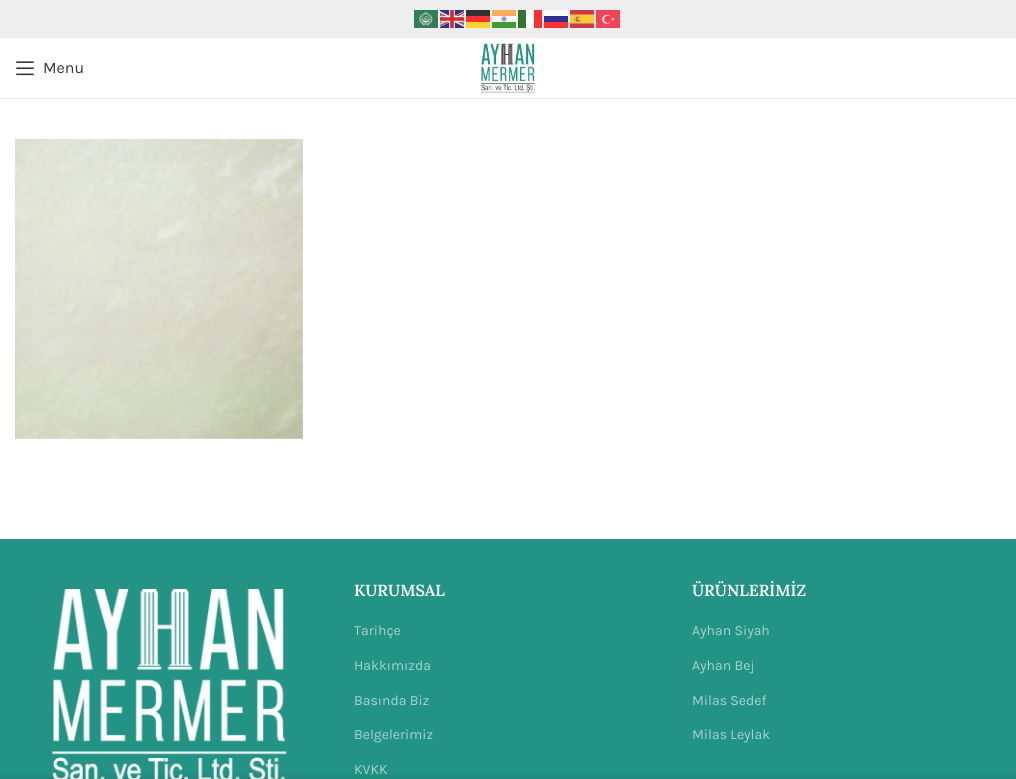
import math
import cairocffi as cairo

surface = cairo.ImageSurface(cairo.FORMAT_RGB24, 1016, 779)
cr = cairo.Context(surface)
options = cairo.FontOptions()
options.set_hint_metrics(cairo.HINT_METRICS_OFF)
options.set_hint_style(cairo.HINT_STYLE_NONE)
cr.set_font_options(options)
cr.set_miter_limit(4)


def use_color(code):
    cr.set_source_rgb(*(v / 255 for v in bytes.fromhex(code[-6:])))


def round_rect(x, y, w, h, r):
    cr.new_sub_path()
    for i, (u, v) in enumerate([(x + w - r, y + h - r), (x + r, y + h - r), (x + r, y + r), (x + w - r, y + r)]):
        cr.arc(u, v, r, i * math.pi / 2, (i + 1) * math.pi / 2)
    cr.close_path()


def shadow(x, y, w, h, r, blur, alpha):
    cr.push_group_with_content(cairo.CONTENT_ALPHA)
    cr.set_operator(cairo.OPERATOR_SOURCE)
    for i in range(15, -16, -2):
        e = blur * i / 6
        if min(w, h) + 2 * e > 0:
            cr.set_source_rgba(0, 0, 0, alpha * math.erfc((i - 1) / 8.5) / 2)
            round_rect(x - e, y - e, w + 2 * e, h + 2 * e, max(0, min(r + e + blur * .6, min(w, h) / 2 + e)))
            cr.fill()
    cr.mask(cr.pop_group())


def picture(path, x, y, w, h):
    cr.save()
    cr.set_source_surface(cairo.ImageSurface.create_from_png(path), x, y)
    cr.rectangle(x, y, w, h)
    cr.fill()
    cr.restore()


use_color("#ffffff")
cr.paint()
use_color("#eeeeee")
cr.rectangle(0, 0, 1016, 38)
cr.fill()
picture("img1.png", 414, 10, 24, 18)
picture("img2.png", 440, 10, 24, 18)
use_color("#303030")
cr.rectangle(466, 10, 24, 6)
cr.fill()
picture("img3.png", 492, 10, 24, 18)
use_color("#307530")
cr.rectangle(518, 10, 8, 18)
cr.fill()
use_color("#fcfcfc")
cr.rectangle(526, 10, 8, 18)
cr.fill()
use_color("#f93030")
cr.rectangle(534, 10, 8, 18)
cr.fill()
use_color("#fcfcfc")
cr.rectangle(544, 10, 24, 6)
cr.fill()
picture("img4.png", 570, 10, 24, 18)
picture("img5.png", 596, 10, 24, 18)
use_color("#fc3030")
cr.rectangle(466, 16, 24, 6)
cr.fill()
use_color("#303094")
cr.rectangle(544, 16, 24, 6)
cr.fill()
use_color("#fcd330")
cr.rectangle(466, 22, 24, 6)
cr.fill()
use_color("#fb3030")
cr.rectangle(544, 22, 24, 6)
cr.fill()
use_color("#e8e8e8")
cr.rectangle(0, 98, 1016, 1)
cr.fill()
picture("img6.png", 16, 61, 18, 15)
cr.select_font_face("Karla")
cr.set_font_size(16)
use_color("#333333")
cr.move_to(43, 73)
cr.show_text("Menu")
picture("img7.png", 481, 43, 54, 50)
picture("img8.png", 15, 139, 288, 300)
use_color("#239385")
cr.rectangle(0, 539, 1016, 240)
cr.fill()
picture("img9.png", 51, 589, 236, 190)
cr.select_font_face("Lora SemiBold")
use_color("#ffffff")
cr.move_to(354, 596)
cr.show_text("KURUMSAL")
cr.select_font_face("Karla")
cr.set_font_size(14)
use_color("#a7d4ce")
cr.move_to(354, 635)
cr.show_text("Tarihçe")
cr.move_to(354, 670)
cr.show_text("Hakkımızda")
cr.move_to(354, 705)
cr.show_text("Basında Biz")
cr.move_to(354, 739)
cr.show_text("Belgelerimiz")
cr.move_to(354, 774)
cr.show_text("KVKK")
cr.select_font_face("Lora SemiBold")
cr.set_font_size(16)
use_color("#ffffff")
cr.move_to(692, 596)
cr.show_text("ÜRÜNLERİMİZ")
cr.select_font_face("Karla")
cr.set_font_size(14)
use_color("#a7d4ce")
cr.move_to(692, 635)
cr.show_text("Ayhan Siyah")
cr.move_to(692, 670)
cr.show_text("Ayhan Bej")
cr.move_to(692, 705)
cr.show_text("Milas Sedef")
cr.move_to(692, 739)
cr.show_text("Milas Leylak")
use_color("#000000")
shadow(0, 779, 1016, 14, 0, 4.5, 0.14)
surface.write_to_png("result.png")
